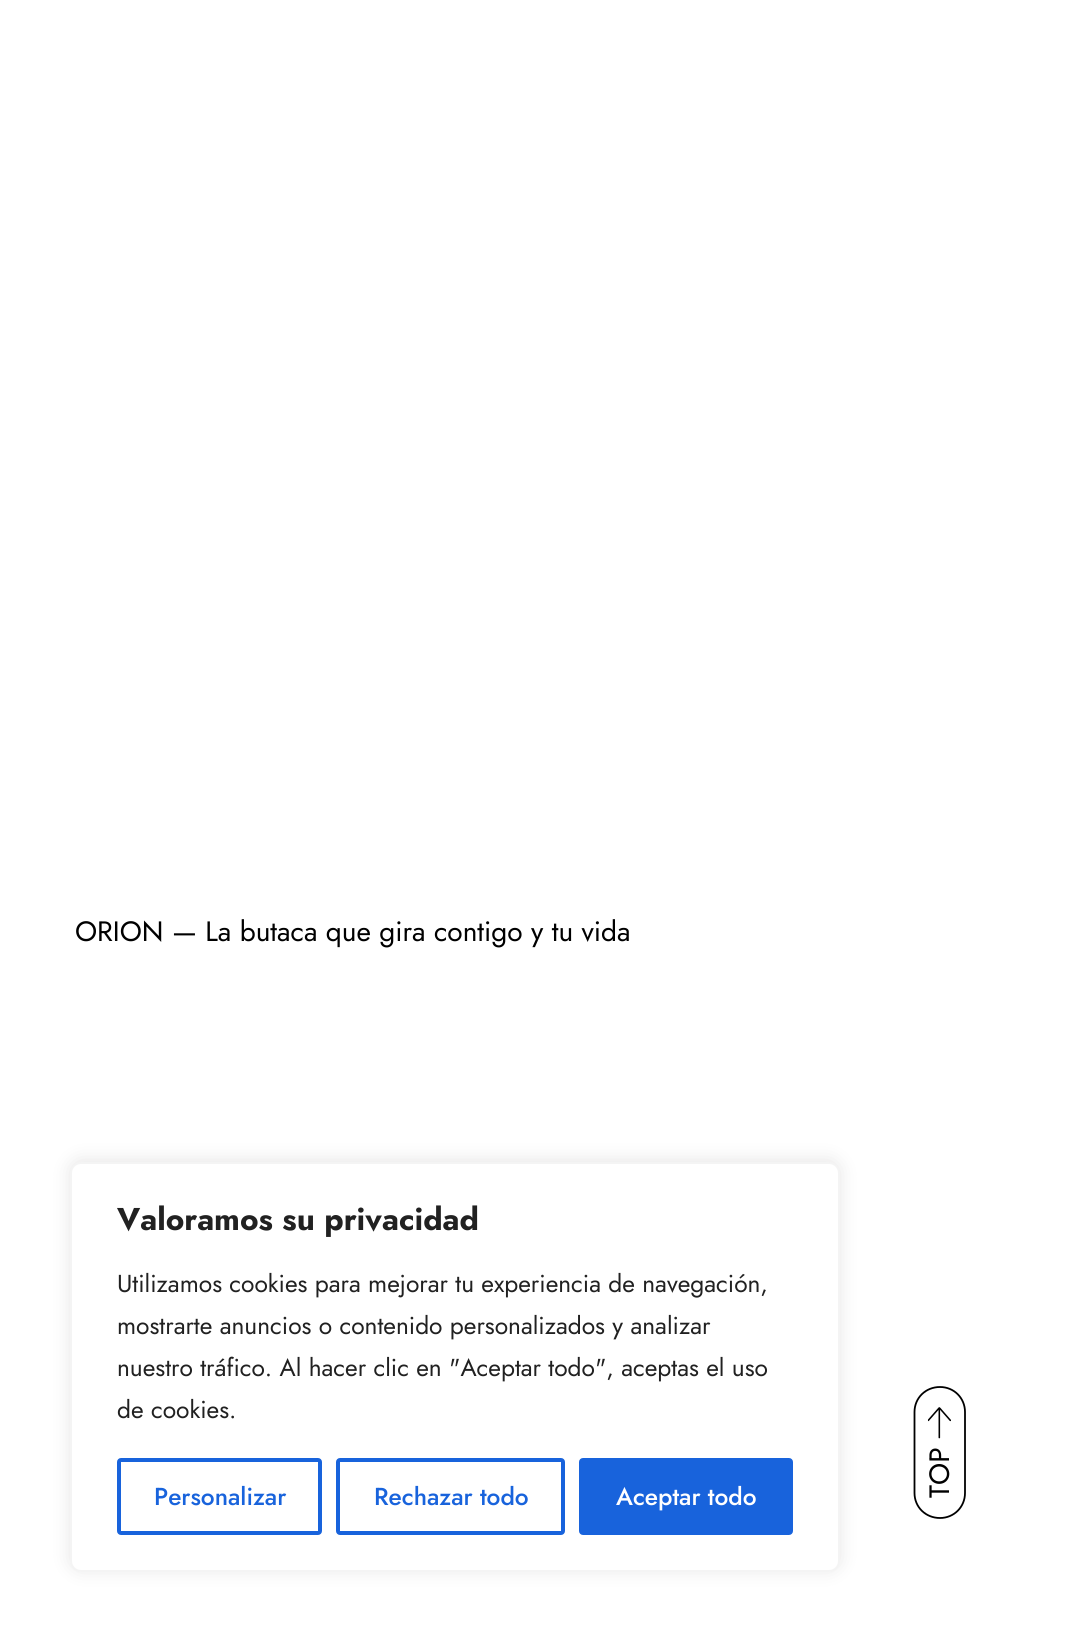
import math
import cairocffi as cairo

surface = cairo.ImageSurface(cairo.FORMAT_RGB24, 1071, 1641)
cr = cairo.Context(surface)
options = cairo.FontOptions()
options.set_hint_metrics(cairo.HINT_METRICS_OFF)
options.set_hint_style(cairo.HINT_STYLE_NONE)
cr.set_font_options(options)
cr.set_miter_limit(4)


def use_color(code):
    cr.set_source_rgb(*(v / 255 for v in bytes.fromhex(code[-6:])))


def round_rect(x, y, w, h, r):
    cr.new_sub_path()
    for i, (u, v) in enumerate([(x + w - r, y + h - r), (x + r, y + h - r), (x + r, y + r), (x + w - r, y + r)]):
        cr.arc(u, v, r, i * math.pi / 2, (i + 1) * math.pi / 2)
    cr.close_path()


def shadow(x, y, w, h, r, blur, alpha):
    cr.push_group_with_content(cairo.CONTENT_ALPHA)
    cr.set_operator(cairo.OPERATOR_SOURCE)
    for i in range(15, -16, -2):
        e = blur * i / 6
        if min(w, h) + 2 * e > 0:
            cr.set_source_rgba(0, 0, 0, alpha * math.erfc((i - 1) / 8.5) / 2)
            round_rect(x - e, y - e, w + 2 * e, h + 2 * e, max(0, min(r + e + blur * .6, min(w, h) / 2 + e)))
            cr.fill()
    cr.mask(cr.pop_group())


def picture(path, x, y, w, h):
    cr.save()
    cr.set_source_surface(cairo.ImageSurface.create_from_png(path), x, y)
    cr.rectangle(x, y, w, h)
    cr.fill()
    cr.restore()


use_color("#ffffff")
cr.paint()
cr.select_font_face("Jost")
cr.set_font_size(28)
use_color("#000000")
cr.move_to(75, 941)
cr.show_text("ORION — La butaca que gira contigo y tu vida")
cr.new_path()
cr.move_to(914.5, 1493)
cr.line_to(914.5, 1412)
cr.curve_to(914.5, 1398, 925.5, 1387, 940, 1387)
cr.curve_to(954, 1387, 965, 1398, 965, 1412)
cr.line_to(965, 1493)
cr.curve_to(965, 1507, 954, 1518, 940, 1518)
cr.curve_to(925.5, 1518, 914.5, 1507, 914.5, 1493)
cr.close_path()
cr.set_line_width(1.8)
cr.stroke()
picture("img1.png", 927, 1407, 24, 32)
cr.save()
cr.translate(949, 1498)
cr.rotate(-90 * math.pi / 180)
cr.move_to(0, 0)
cr.show_text("TOP")
cr.restore()
use_color("#acabab")
shadow(70, 1160, 770, 410, 11, 9, 0.3)
use_color("#ffffff")
round_rect(71, 1163, 768, 408, 10)
cr.fill_preserve()
use_color("#f4f4f4")
cr.set_line_width(2)
cr.stroke()
cr.select_font_face("Jost", cairo.FONT_SLANT_NORMAL, cairo.FONT_WEIGHT_BOLD)
cr.set_font_size(31.5)
use_color("#212121")
cr.move_to(117, 1230)
cr.show_text("Valoramos su privacidad")
cr.select_font_face("Jost")
cr.set_font_size(24.5)
cr.move_to(117, 1292)
cr.show_text("Utilizamos cookies para mejorar tu experiencia de navegación,")
cr.move_to(117, 1334)
cr.show_text("mostrarte anuncios o contenido personalizados y analizar")
cr.move_to(117, 1376)
cr.show_text("nuestro tráfico. Al hacer clic en \"Aceptar todo\", aceptas el uso")
cr.move_to(117, 1418)
cr.show_text("de cookies.")
round_rect(119, 1460, 201, 73, 2)
use_color("#1863dc")
cr.set_line_width(4)
cr.stroke()
cr.select_font_face("Jost Medium")
cr.move_to(154, 1505)
cr.show_text("Personalizar")
round_rect(338, 1460, 225, 73, 2)
cr.stroke()
cr.move_to(374, 1505)
cr.show_text("Rechazar todo")
round_rect(581, 1460, 210, 73, 2)
cr.fill_preserve()
cr.stroke()
use_color("#ffffff")
cr.move_to(616, 1505)
cr.show_text("Aceptar todo")
surface.write_to_png("result.png")
